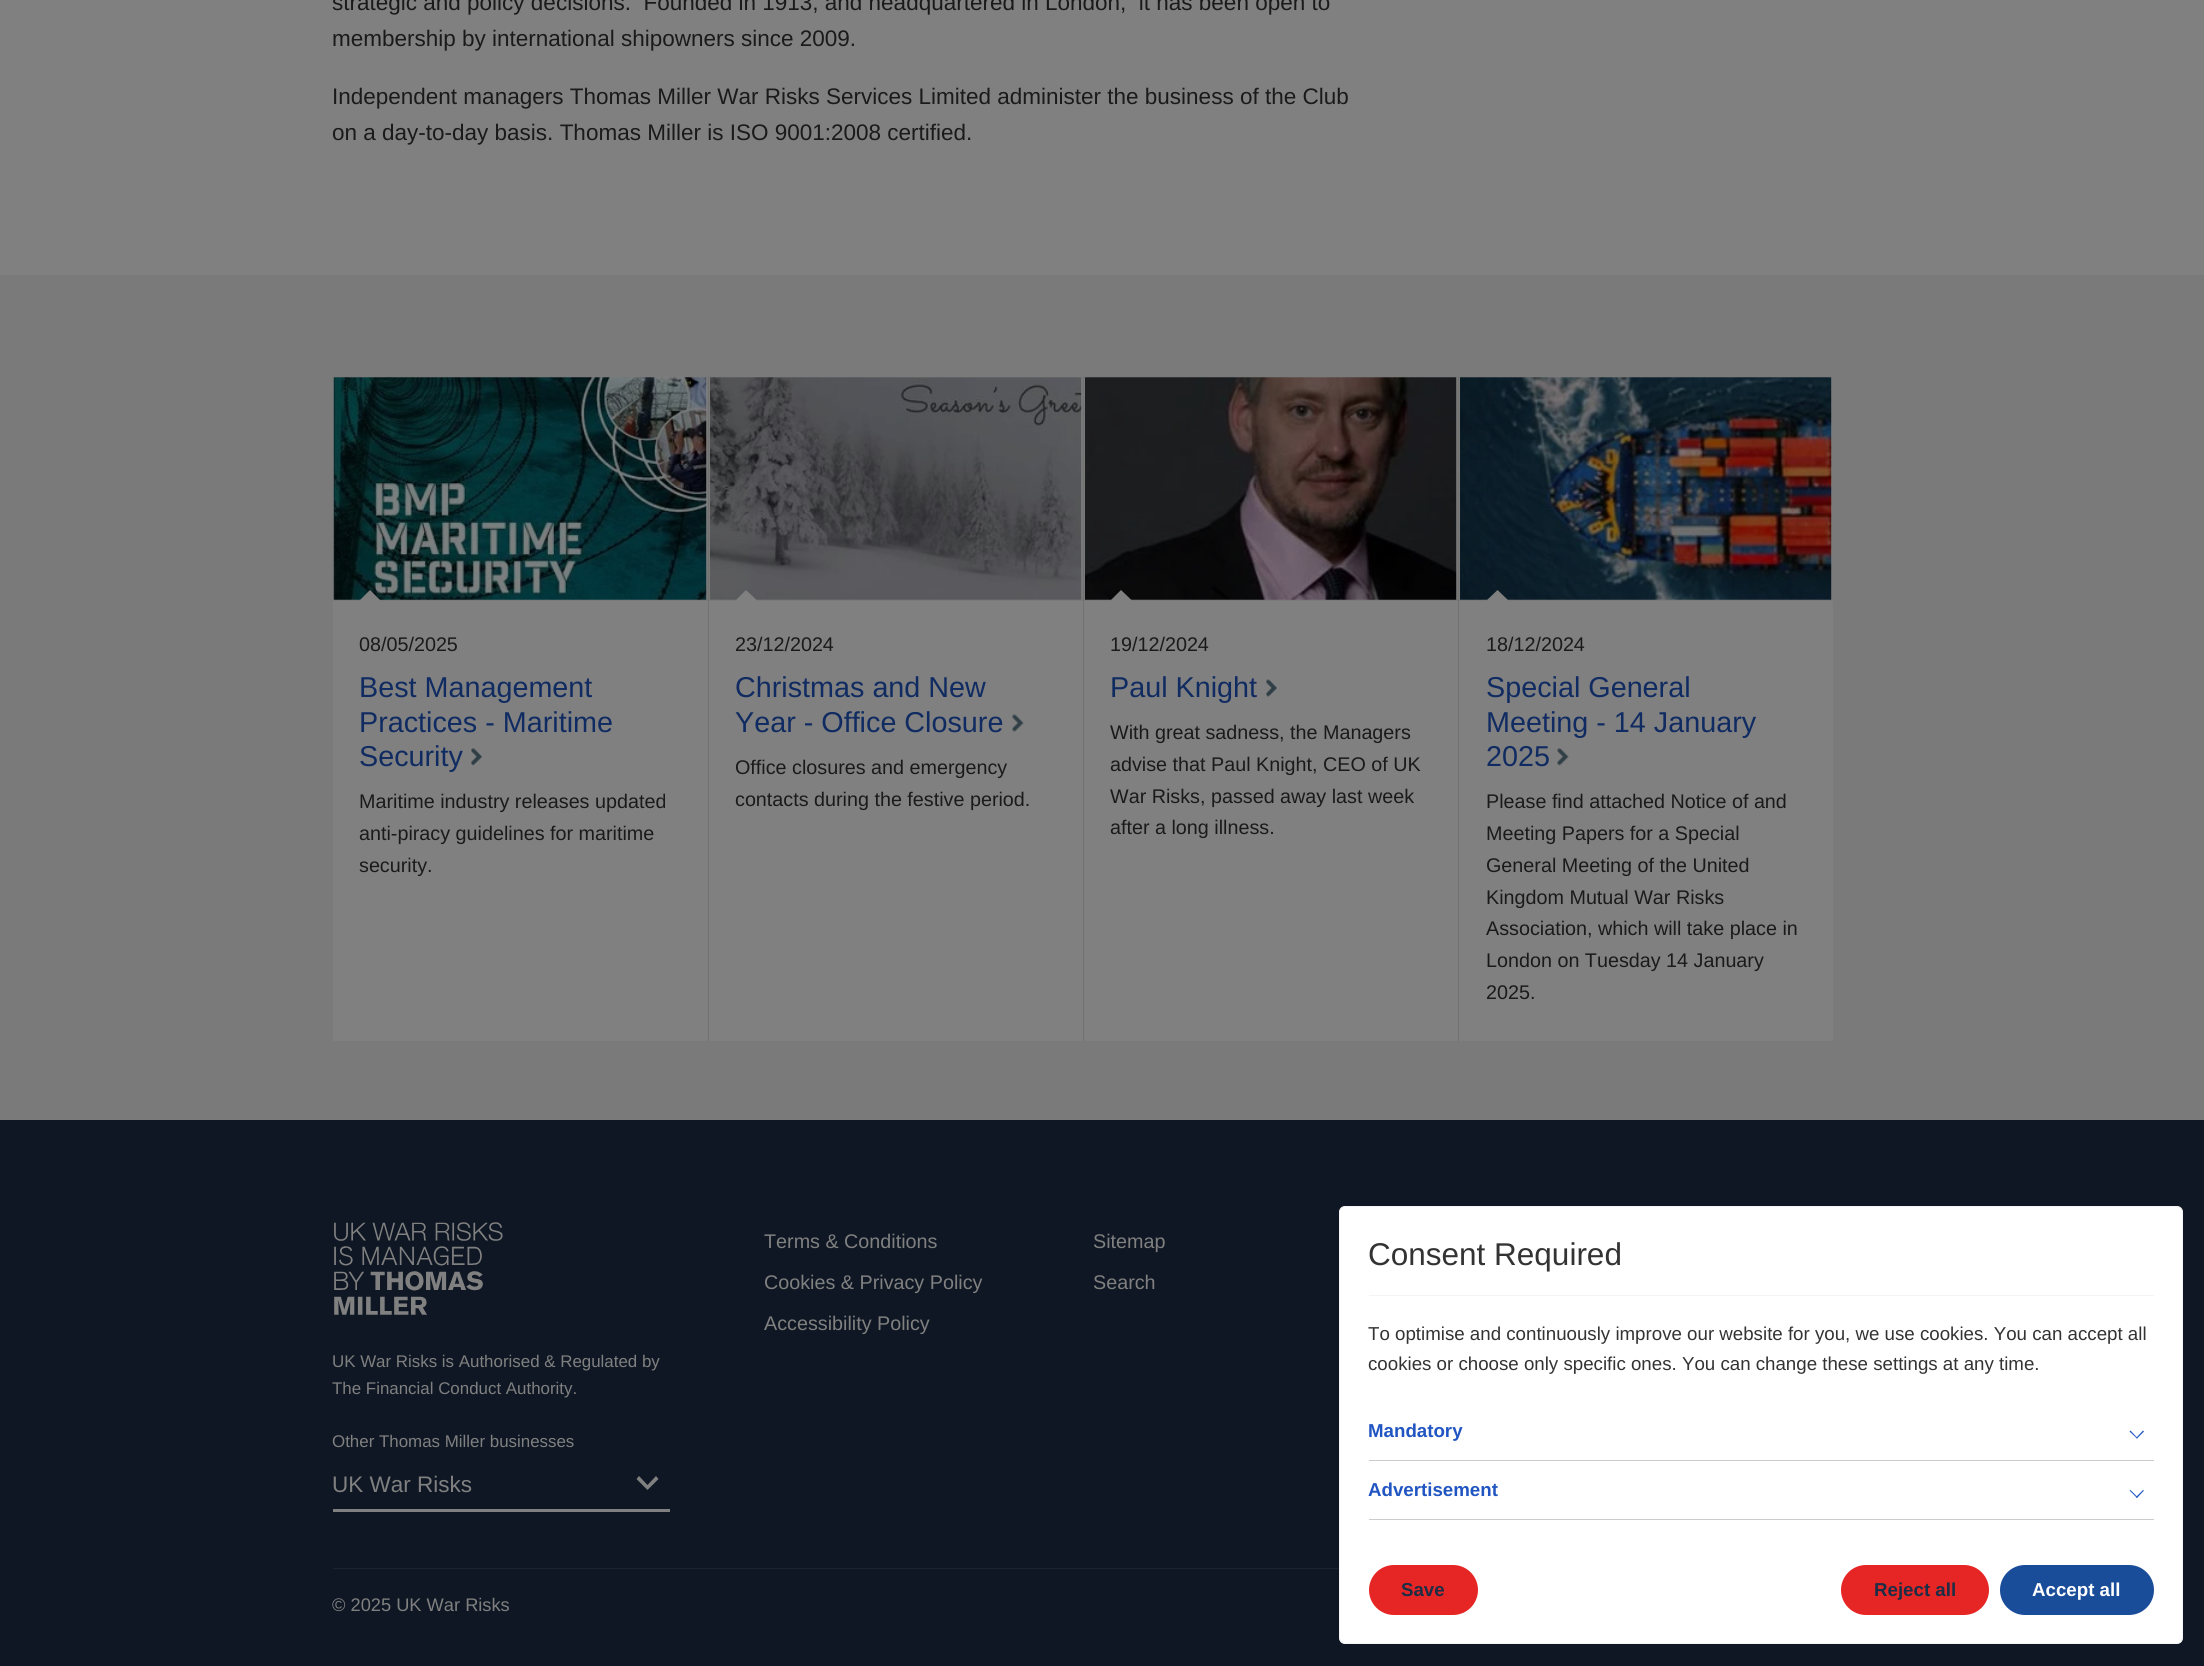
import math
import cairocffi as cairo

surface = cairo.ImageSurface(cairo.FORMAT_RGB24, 2204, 1666)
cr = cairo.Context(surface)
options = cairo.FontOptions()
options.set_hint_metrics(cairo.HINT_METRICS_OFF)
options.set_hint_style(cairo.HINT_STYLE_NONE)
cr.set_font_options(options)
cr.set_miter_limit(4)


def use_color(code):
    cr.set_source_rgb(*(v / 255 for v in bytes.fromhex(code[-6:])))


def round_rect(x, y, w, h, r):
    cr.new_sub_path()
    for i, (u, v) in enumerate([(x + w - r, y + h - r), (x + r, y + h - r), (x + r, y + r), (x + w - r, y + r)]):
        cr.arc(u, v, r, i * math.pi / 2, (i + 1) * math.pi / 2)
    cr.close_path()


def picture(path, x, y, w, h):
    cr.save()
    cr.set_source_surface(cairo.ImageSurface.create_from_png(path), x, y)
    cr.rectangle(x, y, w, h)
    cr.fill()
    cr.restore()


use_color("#808080")
cr.paint()
cr.select_font_face("Liberation Sans")
cr.set_font_size(22.5)
use_color("#1a1a1a")
cr.move_to(332, 10)
cr.show_text("strategic and policy decisions.  Founded in 1913, and headquartered in London,  it has been open to")
cr.move_to(332, 46)
cr.show_text("membership by international shipowners since 2009.")
cr.move_to(332, 104)
cr.show_text("Independent managers Thomas Miller War Risks Services Limited administer the business of the Club")
cr.move_to(332, 140)
cr.show_text("on a day-to-day basis. Thomas Miller is ISO 9001:2008 certified.")
use_color("#7a7a7a")
cr.rectangle(0, 275, 333, 845)
cr.fill()
cr.rectangle(333, 275, 1871, 845)
cr.fill()
use_color("#808080")
cr.rectangle(333, 377, 375, 664)
cr.fill()
cr.rectangle(333.5, 376.5, 374, 224)
use_color("#7a7a7a")
cr.set_line_width(1)
cr.stroke()
picture("img1.png", 333, 377, 374, 223)
use_color("#808080")
cr.new_path()
cr.move_to(381, 601)
cr.line_to(359, 601)
cr.line_to(370, 590)
cr.close_path()
cr.fill()
cr.set_font_size(19.75)
use_color("#1a1a1a")
cr.move_to(359, 651)
cr.show_text("08/05/2025")
cr.set_font_size(28.75)
use_color("#102b61")
cr.move_to(359, 697)
cr.show_text("Best Management")
cr.move_to(359, 732)
cr.show_text("Practices - Maritime")
cr.move_to(359, 766)
cr.show_text("Security")
picture("img2.png", 471, 748, 11, 18)
cr.set_font_size(19.75)
use_color("#1a1a1a")
cr.move_to(359, 808)
cr.show_text("Maritime industry releases updated")
cr.move_to(359, 840)
cr.show_text("anti-piracy guidelines for maritime")
cr.move_to(359, 872)
cr.show_text("security.")
use_color("#808080")
cr.rectangle(709, 377, 374, 664)
cr.fill()
use_color("#717171")
cr.rectangle(708, 376, 1, 665)
cr.fill()
cr.rectangle(709.5, 376.5, 373, 224)
use_color("#7a7a7a")
cr.stroke()
picture("img3.png", 710, 377, 372, 223)
use_color("#808080")
cr.new_path()
cr.move_to(757.5, 601)
cr.line_to(735, 601)
cr.line_to(746, 590)
cr.close_path()
cr.fill()
use_color("#1a1a1a")
cr.move_to(735, 651)
cr.show_text("23/12/2024")
cr.set_font_size(28.75)
use_color("#102b61")
cr.move_to(735, 697)
cr.show_text("Christmas and New")
cr.move_to(735, 732)
cr.show_text("Year - Office Closure")
picture("img4.png", 1012, 714, 12, 18)
cr.set_font_size(19.75)
use_color("#1a1a1a")
cr.move_to(735, 774)
cr.show_text("Office closures and emergency")
cr.move_to(735, 806)
cr.show_text("contacts during the festive period.")
use_color("#808080")
cr.rectangle(1084, 377, 374, 664)
cr.fill()
use_color("#717171")
cr.rectangle(1083, 376, 1, 665)
cr.fill()
cr.rectangle(1084.5, 376.5, 373, 224)
use_color("#7a7a7a")
cr.stroke()
picture("img5.png", 1085, 377, 372, 223)
use_color("#808080")
cr.new_path()
cr.move_to(1132.5, 601)
cr.line_to(1110, 601)
cr.line_to(1121, 590)
cr.close_path()
cr.fill()
use_color("#1a1a1a")
cr.move_to(1110, 651)
cr.show_text("19/12/2024")
cr.set_font_size(28.75)
use_color("#102b61")
cr.move_to(1110, 697)
cr.show_text("Paul Knight")
picture("img6.png", 1266, 679, 11, 18)
cr.set_font_size(19.75)
use_color("#1a1a1a")
cr.move_to(1110, 739)
cr.show_text("With great sadness, the Managers")
cr.move_to(1110, 771)
cr.show_text("advise that Paul Knight, CEO of UK")
cr.move_to(1110, 803)
cr.show_text("War Risks, passed away last week")
cr.move_to(1110, 834)
cr.show_text("after a long illness.")
use_color("#808080")
cr.rectangle(1459, 377, 374, 664)
cr.fill()
use_color("#717171")
cr.rectangle(1458, 376, 1, 665)
cr.fill()
cr.rectangle(1459.5, 376.5, 373, 224)
use_color("#7a7a7a")
cr.stroke()
picture("img7.png", 1460, 377, 372, 223)
use_color("#808080")
cr.new_path()
cr.move_to(1509, 601)
cr.line_to(1486, 601)
cr.line_to(1497.5, 590)
cr.close_path()
cr.fill()
use_color("#1a1a1a")
cr.move_to(1486, 651)
cr.show_text("18/12/2024")
cr.set_font_size(28.75)
use_color("#102b61")
cr.move_to(1486, 697)
cr.show_text("Special General")
cr.move_to(1486, 732)
cr.show_text("Meeting - 14 January")
cr.move_to(1486, 766)
cr.show_text("2025")
picture("img8.png", 1557, 748, 12, 18)
cr.set_font_size(19.75)
use_color("#1a1a1a")
cr.move_to(1486, 808)
cr.show_text("Please find attached Notice of and")
cr.move_to(1486, 840)
cr.show_text("Meeting Papers for a Special")
cr.move_to(1486, 872)
cr.show_text("General Meeting of the United")
cr.move_to(1486, 904)
cr.show_text("Kingdom Mutual War Risks")
cr.move_to(1486, 935)
cr.show_text("Association, which will take place in")
cr.move_to(1486, 967)
cr.show_text("London on Tuesday 14 January")
cr.move_to(1486, 999)
cr.show_text("2025.")
use_color("#0e1723")
cr.rectangle(0, 1120, 2204, 546)
cr.fill()
use_color("#808080")
cr.move_to(764, 1248)
cr.show_text("Terms & Conditions")
cr.move_to(1093, 1248)
cr.show_text("Sitemap")
cr.move_to(764, 1289)
cr.show_text("Cookies & Privacy Policy")
cr.move_to(1093, 1289)
cr.show_text("Search")
cr.move_to(764, 1330)
cr.show_text("Accessibility Policy")
picture("img9.png", 334, 1222, 169, 93)
cr.set_font_size(16.9)
cr.move_to(332, 1367)
cr.show_text("UK War Risks is Authorised & Regulated by")
cr.move_to(332, 1394)
cr.show_text("The Financial Conduct Authority.")
cr.move_to(332, 1447)
cr.show_text("Other Thomas Miller businesses")
cr.new_path()
cr.move_to(658.5, 1479)
cr.line_to(656, 1476)
cr.line_to(647.5, 1485)
cr.line_to(639, 1476)
cr.line_to(636.5, 1479)
cr.line_to(647.5, 1490)
cr.close_path()
cr.fill()
cr.rectangle(333, 1509, 337, 3)
cr.fill()
cr.set_font_size(22.5)
cr.move_to(332, 1492)
cr.show_text("UK War Risks")
use_color("#1c232e")
cr.rectangle(333, 1568, 1006, 1)
cr.fill()
cr.set_font_size(18.25)
use_color("#808080")
cr.move_to(332, 1611)
cr.show_text("© 2025 UK War Risks")
use_color("#ffffff")
round_rect(1339.5, 1206.5, 843, 437, 5.5)
cr.fill_preserve()
use_color("#f4f4f4")
cr.stroke()
cr.rectangle(1369, 1295, 785, 1)
cr.fill()
cr.set_font_size(31.5)
use_color("#333333")
cr.move_to(1368, 1265)
cr.show_text("Consent Required")
cr.set_font_size(18.7)
cr.move_to(1368, 1340)
cr.show_text("To optimise and continuously improve our website for you, we use cookies. You can accept all")
cr.move_to(1368, 1370)
cr.show_text("cookies or choose only specific ones. You can change these settings at any time.")
use_color("#cccccc")
cr.rectangle(1369, 1460, 785, 1)
cr.fill()
cr.select_font_face("Liberation Sans", cairo.FONT_SLANT_NORMAL, cairo.FONT_WEIGHT_BOLD)
use_color("#2055c2")
cr.move_to(1368, 1437)
cr.show_text("Mandatory")
cr.new_path()
cr.move_to(2143, 1430.5)
cr.line_to(2144, 1431.5)
cr.line_to(2137, 1438.5)
cr.line_to(2136, 1438)
cr.close_path()
cr.fill()
cr.new_path()
cr.move_to(2130.5, 1430.5)
cr.line_to(2137.5, 1438)
cr.line_to(2137, 1438.5)
cr.line_to(2129.5, 1431.5)
cr.close_path()
cr.fill()
use_color("#cccccc")
cr.rectangle(1369, 1519, 785, 1)
cr.fill()
use_color("#2055c2")
cr.move_to(1368, 1496)
cr.show_text("Advertisement")
cr.new_path()
cr.move_to(2143, 1490)
cr.line_to(2144, 1490.5)
cr.line_to(2137, 1498)
cr.line_to(2136, 1497)
cr.close_path()
cr.fill()
cr.new_path()
cr.move_to(2130.5, 1490)
cr.line_to(2137.5, 1497)
cr.line_to(2137, 1498)
cr.line_to(2129.5, 1490.5)
cr.close_path()
cr.fill()
use_color("#e52625")
round_rect(1369, 1565, 109, 50, 25)
cr.fill()
use_color("#1c2d46")
cr.move_to(1401, 1596)
cr.show_text("Save")
use_color("#e52625")
round_rect(1841, 1565, 148, 50, 25)
cr.fill()
use_color("#1c2d46")
cr.move_to(1874, 1596)
cr.show_text("Reject all")
use_color("#194c99")
round_rect(2000, 1565, 154, 50, 25)
cr.fill()
use_color("#ffffff")
cr.move_to(2032, 1596)
cr.show_text("Accept all")
surface.write_to_png("result.png")
